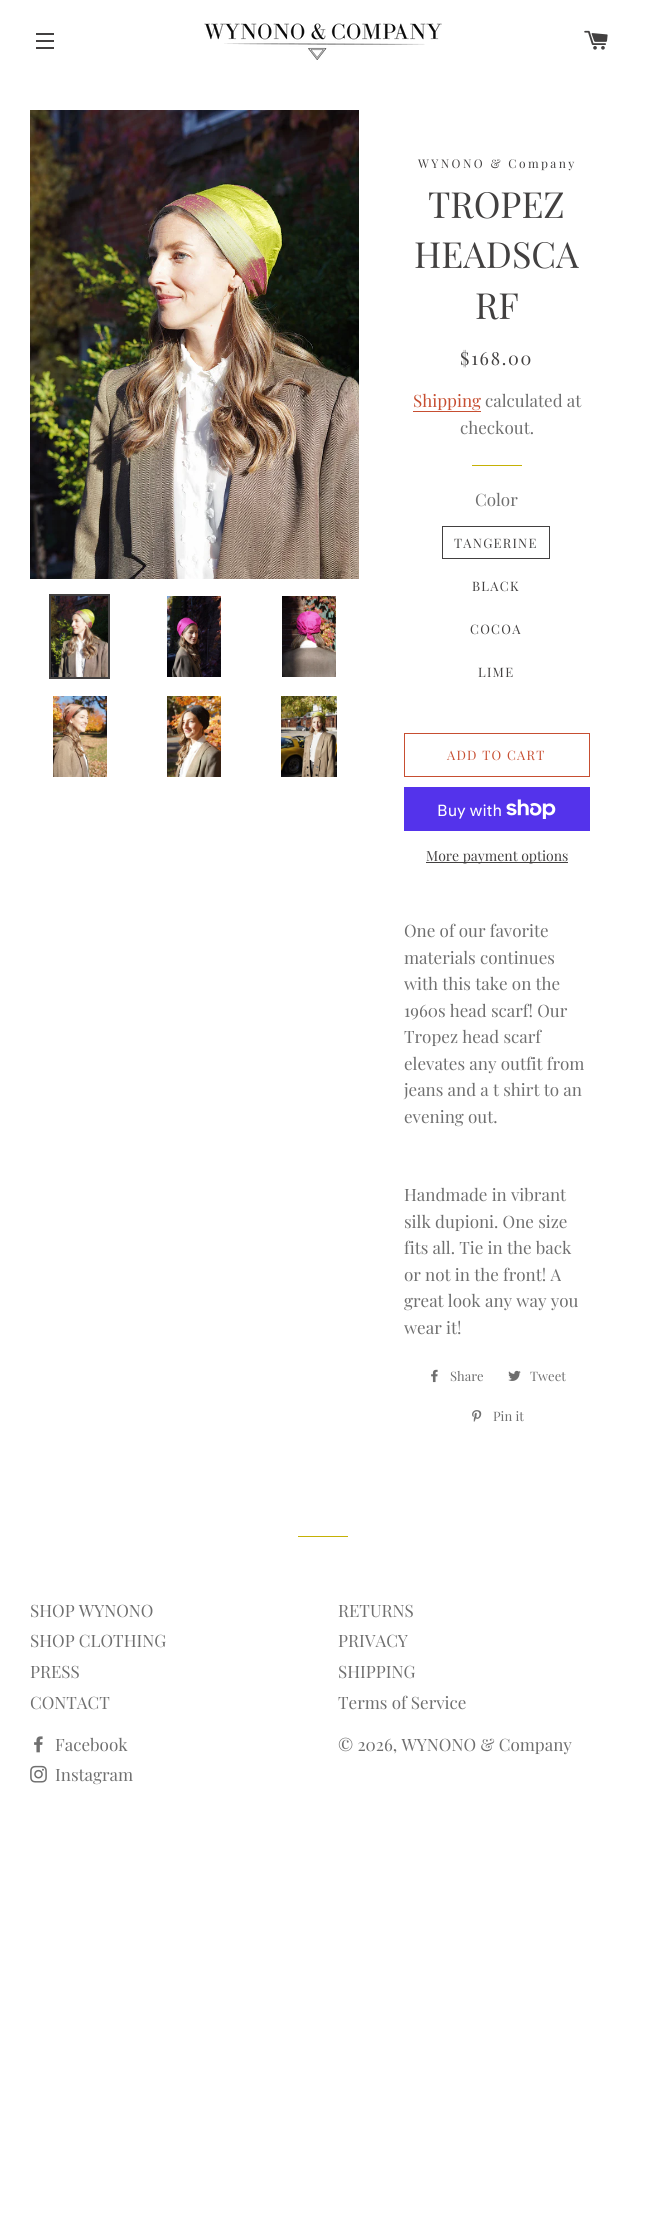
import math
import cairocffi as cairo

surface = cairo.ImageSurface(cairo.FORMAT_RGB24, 645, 2232)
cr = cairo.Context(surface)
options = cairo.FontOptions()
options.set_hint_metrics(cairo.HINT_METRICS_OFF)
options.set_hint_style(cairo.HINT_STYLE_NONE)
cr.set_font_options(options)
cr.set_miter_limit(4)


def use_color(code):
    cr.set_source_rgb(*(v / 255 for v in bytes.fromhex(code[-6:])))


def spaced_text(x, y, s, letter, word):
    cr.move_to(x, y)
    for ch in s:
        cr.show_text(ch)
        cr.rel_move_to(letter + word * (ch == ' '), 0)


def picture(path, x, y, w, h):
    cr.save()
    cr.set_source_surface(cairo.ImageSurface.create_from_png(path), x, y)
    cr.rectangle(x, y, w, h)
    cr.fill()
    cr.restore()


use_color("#ffffff")
cr.paint()
use_color("#424040")
cr.rectangle(36, 33, 18, 2)
cr.fill()
cr.rectangle(36, 40, 18, 2)
cr.fill()
cr.rectangle(36, 47, 18, 2)
cr.fill()
picture("img1.png", 204, 23, 238, 37)
picture("img2.png", 584, 30, 24, 20)
picture("img3.png", 30, 110, 329, 469)
cr.rectangle(50, 595, 59, 83)
cr.stroke()
picture("img4.png", 51, 596, 57, 81)
picture("img5.png", 167, 596, 54, 81)
picture("img6.png", 282, 596, 54, 81)
picture("img7.png", 53, 696, 54, 81)
picture("img8.png", 167, 696, 54, 81)
picture("img9.png", 281, 696, 56, 81)
cr.select_font_face("Playfair Display")
cr.set_font_size(12)
spaced_text(418, 168, "WYNONO & Company", 2.4, 0)
cr.set_font_size(36)
cr.move_to(428, 218)
cr.show_text("TROPEZ")
cr.move_to(414, 268)
cr.show_text("HEADSCA")
cr.move_to(475, 319)
cr.show_text("RF")
cr.set_font_size(18)
spaced_text(460, 365, "$168.00", 1.75, 0)
cr.set_font_size(17)
use_color("#c74e31")
cr.move_to(413, 407)
cr.show_text("Shipping")
cr.rectangle(413, 411, 68, 1)
cr.fill()
use_color("#6f6f6f")
cr.move_to(485, 407)
cr.show_text("calculated at")
cr.move_to(460, 434)
cr.show_text("checkout.")
use_color("#c5b105")
cr.rectangle(472, 465, 50, 1)
cr.fill()
use_color("#6f6f6f")
cr.move_to(475, 506)
cr.show_text("Color")
cr.rectangle(442.5, 526.5, 107, 32)
use_color("#424040")
cr.set_line_width(1)
cr.stroke()
cr.set_font_size(13)
spaced_text(454, 548, "TANGERINE", 1.25, 0)
spaced_text(472, 591, "BLACK", 1.25, 0)
spaced_text(470, 634, "COCOA", 1.25, 0)
spaced_text(478, 677, "LIME", 1.25, 0)
cr.rectangle(404.5, 733.5, 185, 43)
use_color("#c74e31")
cr.stroke()
spaced_text(447, 760, "ADD TO CART", 1.25, 0)
use_color("#5433eb")
cr.rectangle(404, 787, 186, 44)
cr.fill()
cr.select_font_face("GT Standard")
cr.set_font_size(16)
use_color("#ffffff")
cr.move_to(437, 816)
cr.show_text("Buy with")
picture("img10.png", 506, 799, 50, 20)
use_color("#424040")
cr.rectangle(426, 862, 142, 1)
cr.fill()
cr.select_font_face("Playfair Display")
cr.set_font_size(14)
cr.move_to(426, 861)
cr.show_text("More payment options")
cr.set_font_size(17)
use_color("#6f6f6f")
cr.move_to(404, 937)
cr.show_text("One of our favorite")
cr.move_to(404, 964)
cr.show_text("materials continues")
cr.move_to(404, 990)
cr.show_text("with this take on the")
cr.move_to(404, 1017)
cr.show_text("1960s head scarf! Our")
cr.move_to(404, 1043)
cr.show_text("Tropez head scarf")
cr.move_to(404, 1070)
cr.show_text("elevates any outfit from")
cr.move_to(404, 1096)
cr.show_text("jeans and a t shirt to an")
cr.move_to(404, 1123)
cr.show_text("evening out.")
cr.move_to(404, 1201)
cr.show_text("Handmade in vibrant")
cr.move_to(404, 1228)
cr.show_text("silk dupioni. One size")
cr.move_to(404, 1254)
cr.show_text("fits all. Tie in the back")
cr.move_to(404, 1281)
cr.show_text("or not in the front! A")
cr.move_to(404, 1307)
cr.show_text("great look any way you")
cr.move_to(404, 1334)
cr.show_text("wear it!")
picture("img11.png", 431, 1369, 7, 14)
cr.set_font_size(13)
cr.move_to(450, 1381)
cr.show_text("Share")
picture("img12.png", 508, 1370, 13, 11)
cr.move_to(530, 1381)
cr.show_text("Tweet")
picture("img13.png", 472, 1410, 10, 12)
cr.move_to(493, 1421)
cr.show_text("Pin it")
use_color("#c5b105")
cr.rectangle(298, 1536, 50, 1)
cr.fill()
cr.set_font_size(17)
use_color("#6f6f6f")
cr.move_to(30, 1617)
cr.show_text("SHOP WYNONO")
cr.move_to(30, 1647)
cr.show_text("SHOP CLOTHING")
cr.move_to(30, 1678)
cr.show_text("PRESS")
cr.move_to(30, 1709)
cr.show_text("CONTACT")
cr.move_to(338, 1617)
cr.show_text("RETURNS")
cr.move_to(338, 1647)
cr.show_text("PRIVACY")
cr.move_to(338, 1678)
cr.show_text("SHIPPING")
cr.move_to(338, 1709)
cr.show_text("Terms of Service")
picture("img14.png", 34, 1736, 9, 17)
cr.move_to(55, 1751)
cr.show_text("Facebook")
picture("img15.png", 30, 1765, 17, 18)
cr.move_to(55, 1781)
cr.show_text("Instagram")
cr.move_to(338, 1751)
cr.show_text("© 2026, WYNONO & Company")
surface.write_to_png("result.png")
